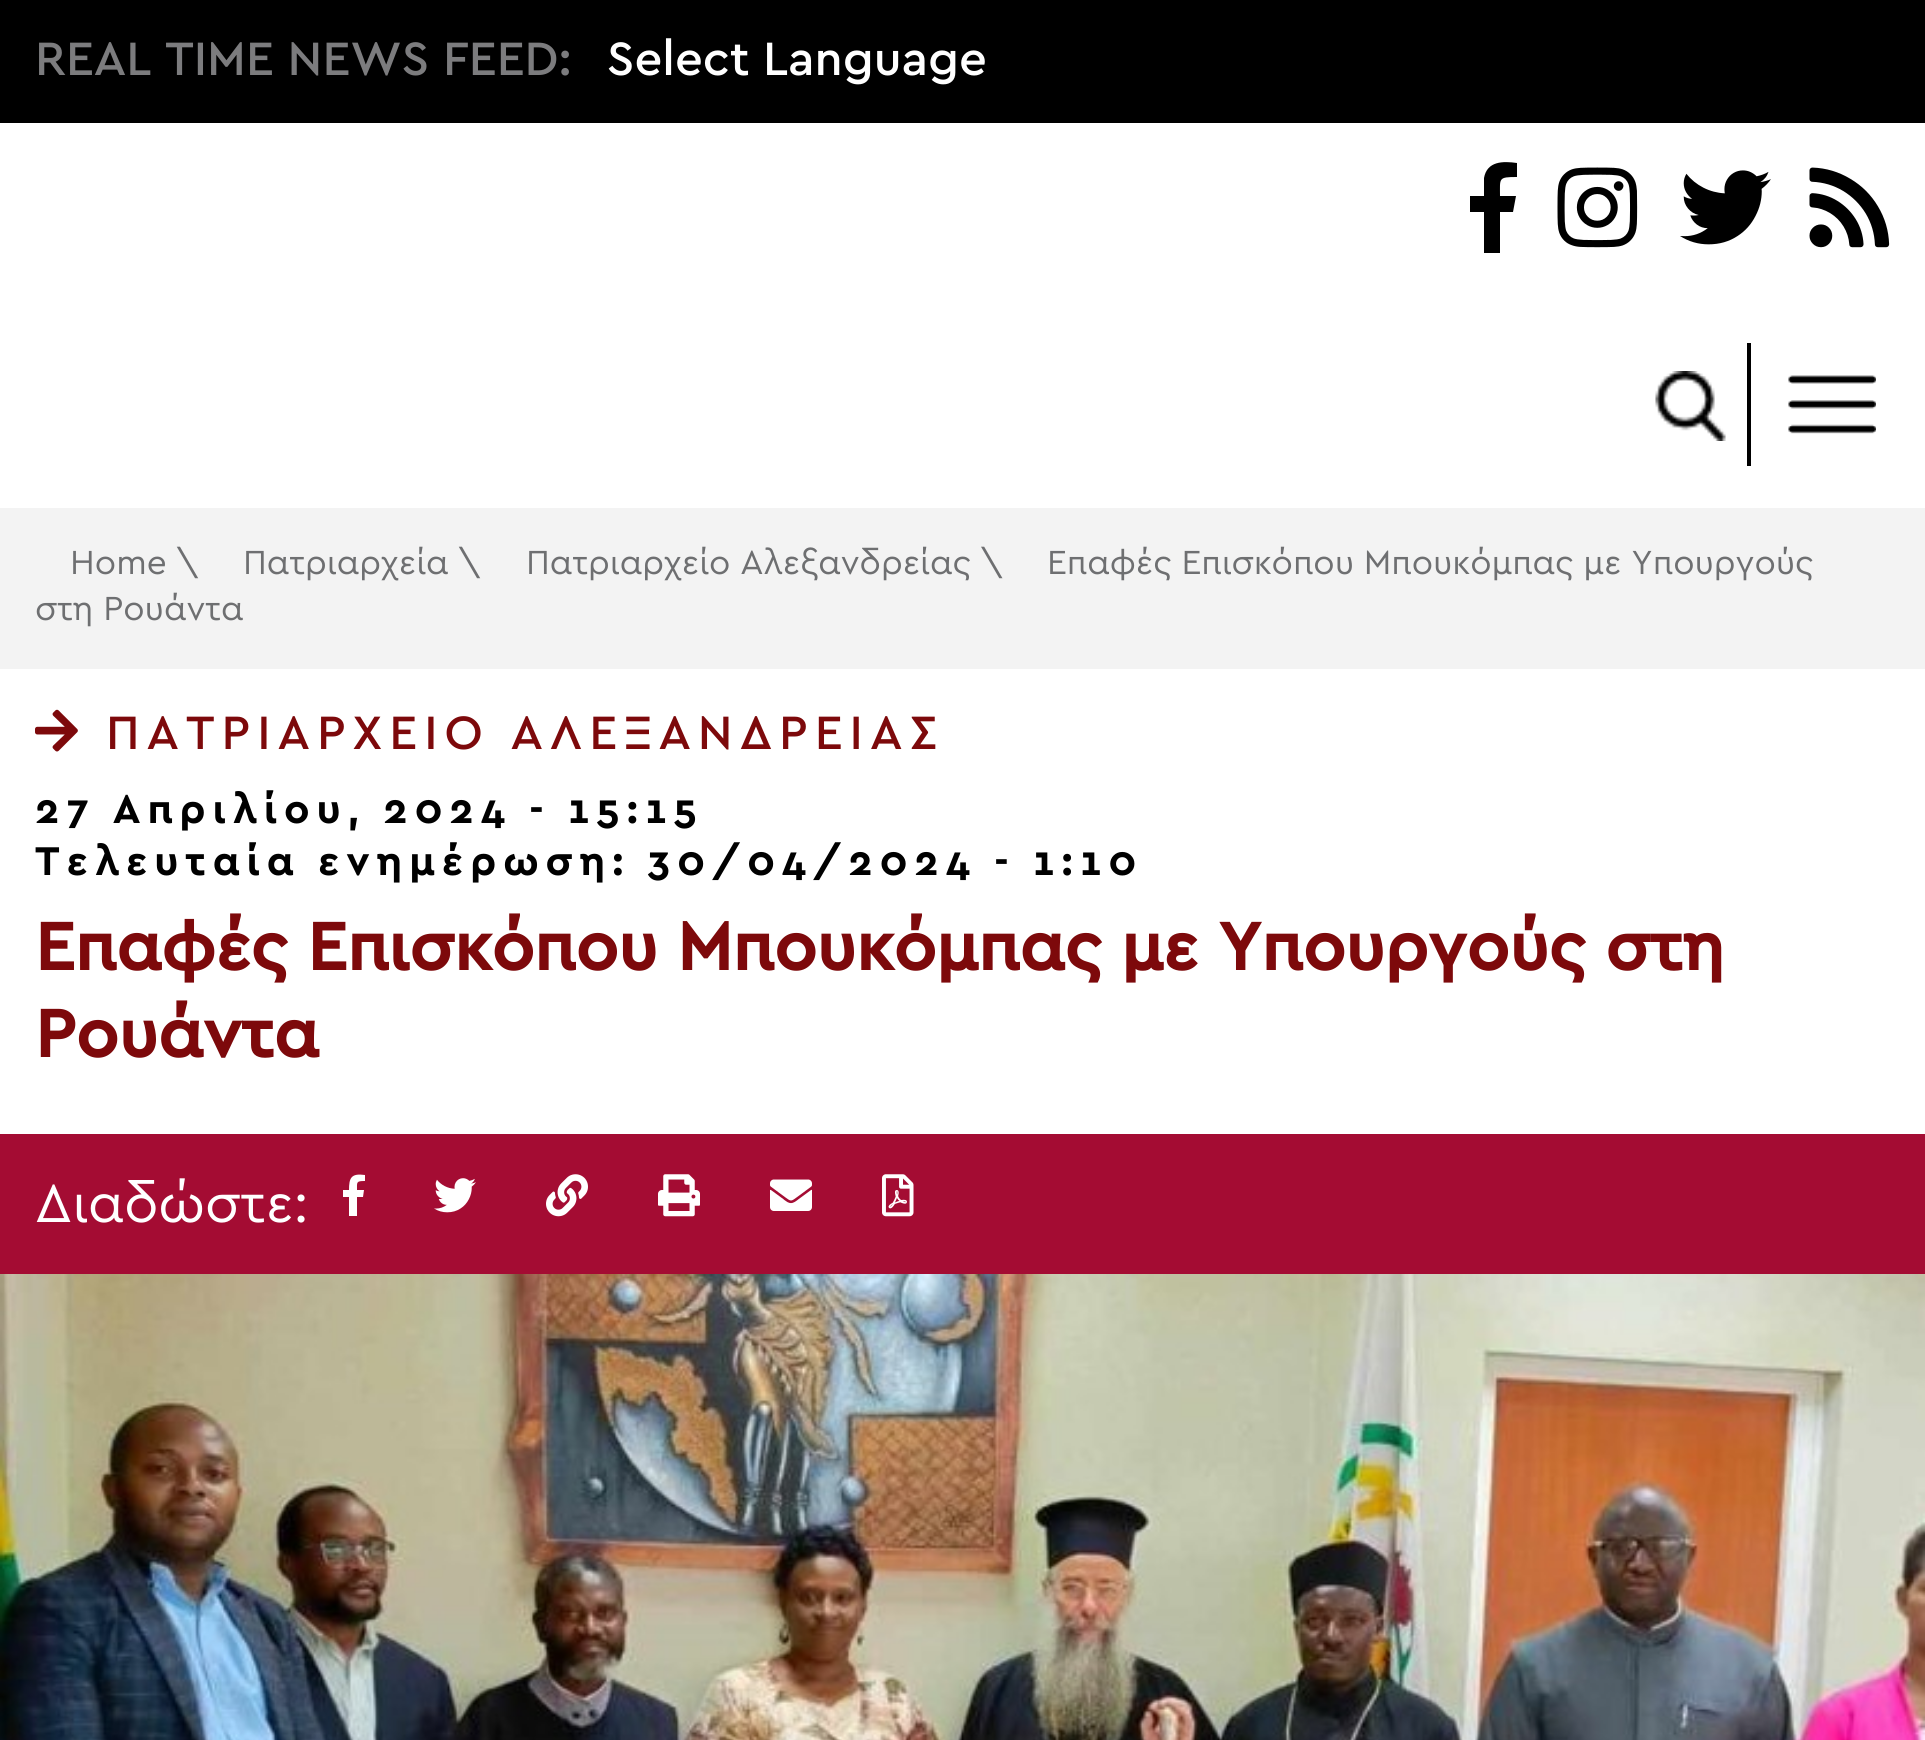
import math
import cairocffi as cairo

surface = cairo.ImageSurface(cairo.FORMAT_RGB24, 1925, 1740)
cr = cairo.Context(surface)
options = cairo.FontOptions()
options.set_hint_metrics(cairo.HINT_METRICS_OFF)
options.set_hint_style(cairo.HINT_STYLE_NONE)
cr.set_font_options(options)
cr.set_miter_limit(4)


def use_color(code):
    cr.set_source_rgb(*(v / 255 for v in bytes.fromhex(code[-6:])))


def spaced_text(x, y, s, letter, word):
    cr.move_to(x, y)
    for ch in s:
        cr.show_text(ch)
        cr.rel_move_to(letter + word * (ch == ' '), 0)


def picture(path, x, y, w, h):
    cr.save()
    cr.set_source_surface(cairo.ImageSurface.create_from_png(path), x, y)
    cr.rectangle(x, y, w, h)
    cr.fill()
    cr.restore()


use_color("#f3f3f3")
cr.paint()
use_color("#000000")
cr.rectangle(0, 0, 1925, 123)
cr.fill()
cr.select_font_face("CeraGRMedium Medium")
cr.set_font_size(49)
use_color("#7c7c7e")
cr.move_to(35, 75)
cr.show_text("REAL TIME NEWS FEED:")
use_color("#ffffff")
cr.move_to(607, 75)
cr.show_text("Select Language")
cr.rectangle(0, 123, 1925, 385)
cr.fill()
use_color("#000000")
cr.new_path()
cr.move_to(1484, 253)
cr.line_to(1484, 212)
cr.line_to(1470, 212)
cr.line_to(1470, 196)
cr.line_to(1484, 196)
cr.line_to(1484, 178)
cr.curve_to(1487, 161, 1503, 161, 1517, 163)
cr.line_to(1517, 177)
cr.curve_to(1498, 177, 1500, 178, 1500, 196)
cr.line_to(1516, 196)
cr.line_to(1513, 212)
cr.line_to(1500, 212)
cr.line_to(1500, 253)
cr.close_path()
cr.fill()
picture("img1.png", 1557, 167, 81, 81)
picture("img2.png", 1680, 170, 91, 75)
picture("img3.png", 1809, 167, 81, 81)
picture("img4.png", 1655, 371, 71, 70)
cr.rectangle(1747, 343, 4, 123)
cr.fill()
picture("img5.png", 1788, 375, 88, 59)
cr.select_font_face("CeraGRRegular")
cr.set_font_size(35)
use_color("#6e6f71")
cr.move_to(70, 574)
cr.show_text("Home \\")
cr.move_to(243, 574)
cr.show_text("Πατριαρχεία \\")
cr.move_to(526, 574)
cr.show_text("Πατριαρχείο Αλεξανδρείας \\")
cr.move_to(1047, 574)
cr.show_text("Επαφές Επισκόπου Μπουκόμπας με Υπουργούς")
cr.move_to(35, 620)
cr.show_text("στη Ρουάντα")
use_color("#ffffff")
cr.rectangle(0, 669, 1925, 465)
cr.fill()
picture("img6.png", 35, 709, 43, 43)
cr.select_font_face("CeraGRMedium Medium")
cr.set_font_size(49)
use_color("#7d090b")
spaced_text(106, 749, "ΠΑΤΡΙΑΡΧΕΙΟ ΑΛΕΞΑΝΔΡΕΙΑΣ", 7, 0)
cr.select_font_face("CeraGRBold", cairo.FONT_SLANT_NORMAL, cairo.FONT_WEIGHT_BOLD)
cr.set_font_size(42)
use_color("#000000")
spaced_text(35, 823, "27 Απριλίου, 2024 - 15:15", 7, -1.5)
spaced_text(35, 875, "Τελευταία ενημέρωση: 30/04/2024 - 1:10", 7, -1.5)
cr.select_font_face("CeraGRMedium", cairo.FONT_SLANT_NORMAL, cairo.FONT_WEIGHT_BOLD)
cr.set_font_size(70)
use_color("#7d090b")
cr.move_to(35, 970)
cr.show_text("Επαφές Επισκόπου Μπουκόμπας με Υπουργούς στη")
cr.move_to(35, 1057)
cr.show_text("Ρουάντα")
use_color("#a40c33")
cr.rectangle(0, 1134, 1925, 140)
cr.fill()
cr.select_font_face("CeraGRRegular")
cr.set_font_size(56)
use_color("#ffffff")
cr.move_to(35, 1222)
cr.show_text("Διαδώστε:")
cr.new_path()
cr.move_to(349, 1216)
cr.line_to(349, 1197)
cr.line_to(343, 1197)
cr.line_to(343, 1190)
cr.line_to(349, 1190)
cr.curve_to(349, 1178, 351, 1173, 365, 1175)
cr.line_to(365, 1181)
cr.curve_to(356, 1181, 357, 1182, 357, 1190)
cr.line_to(364, 1190)
cr.line_to(363, 1197)
cr.line_to(357, 1197)
cr.line_to(357, 1216)
cr.close_path()
cr.fill()
picture("img7.png", 434, 1178, 42, 35)
picture("img8.png", 546, 1174, 42, 43)
picture("img9.png", 658, 1174, 42, 43)
picture("img10.png", 770, 1179, 42, 32)
picture("img11.png", 882, 1174, 32, 43)
picture("img12.png", 0, 1274, 1925, 466)
surface.write_to_png("result.png")
